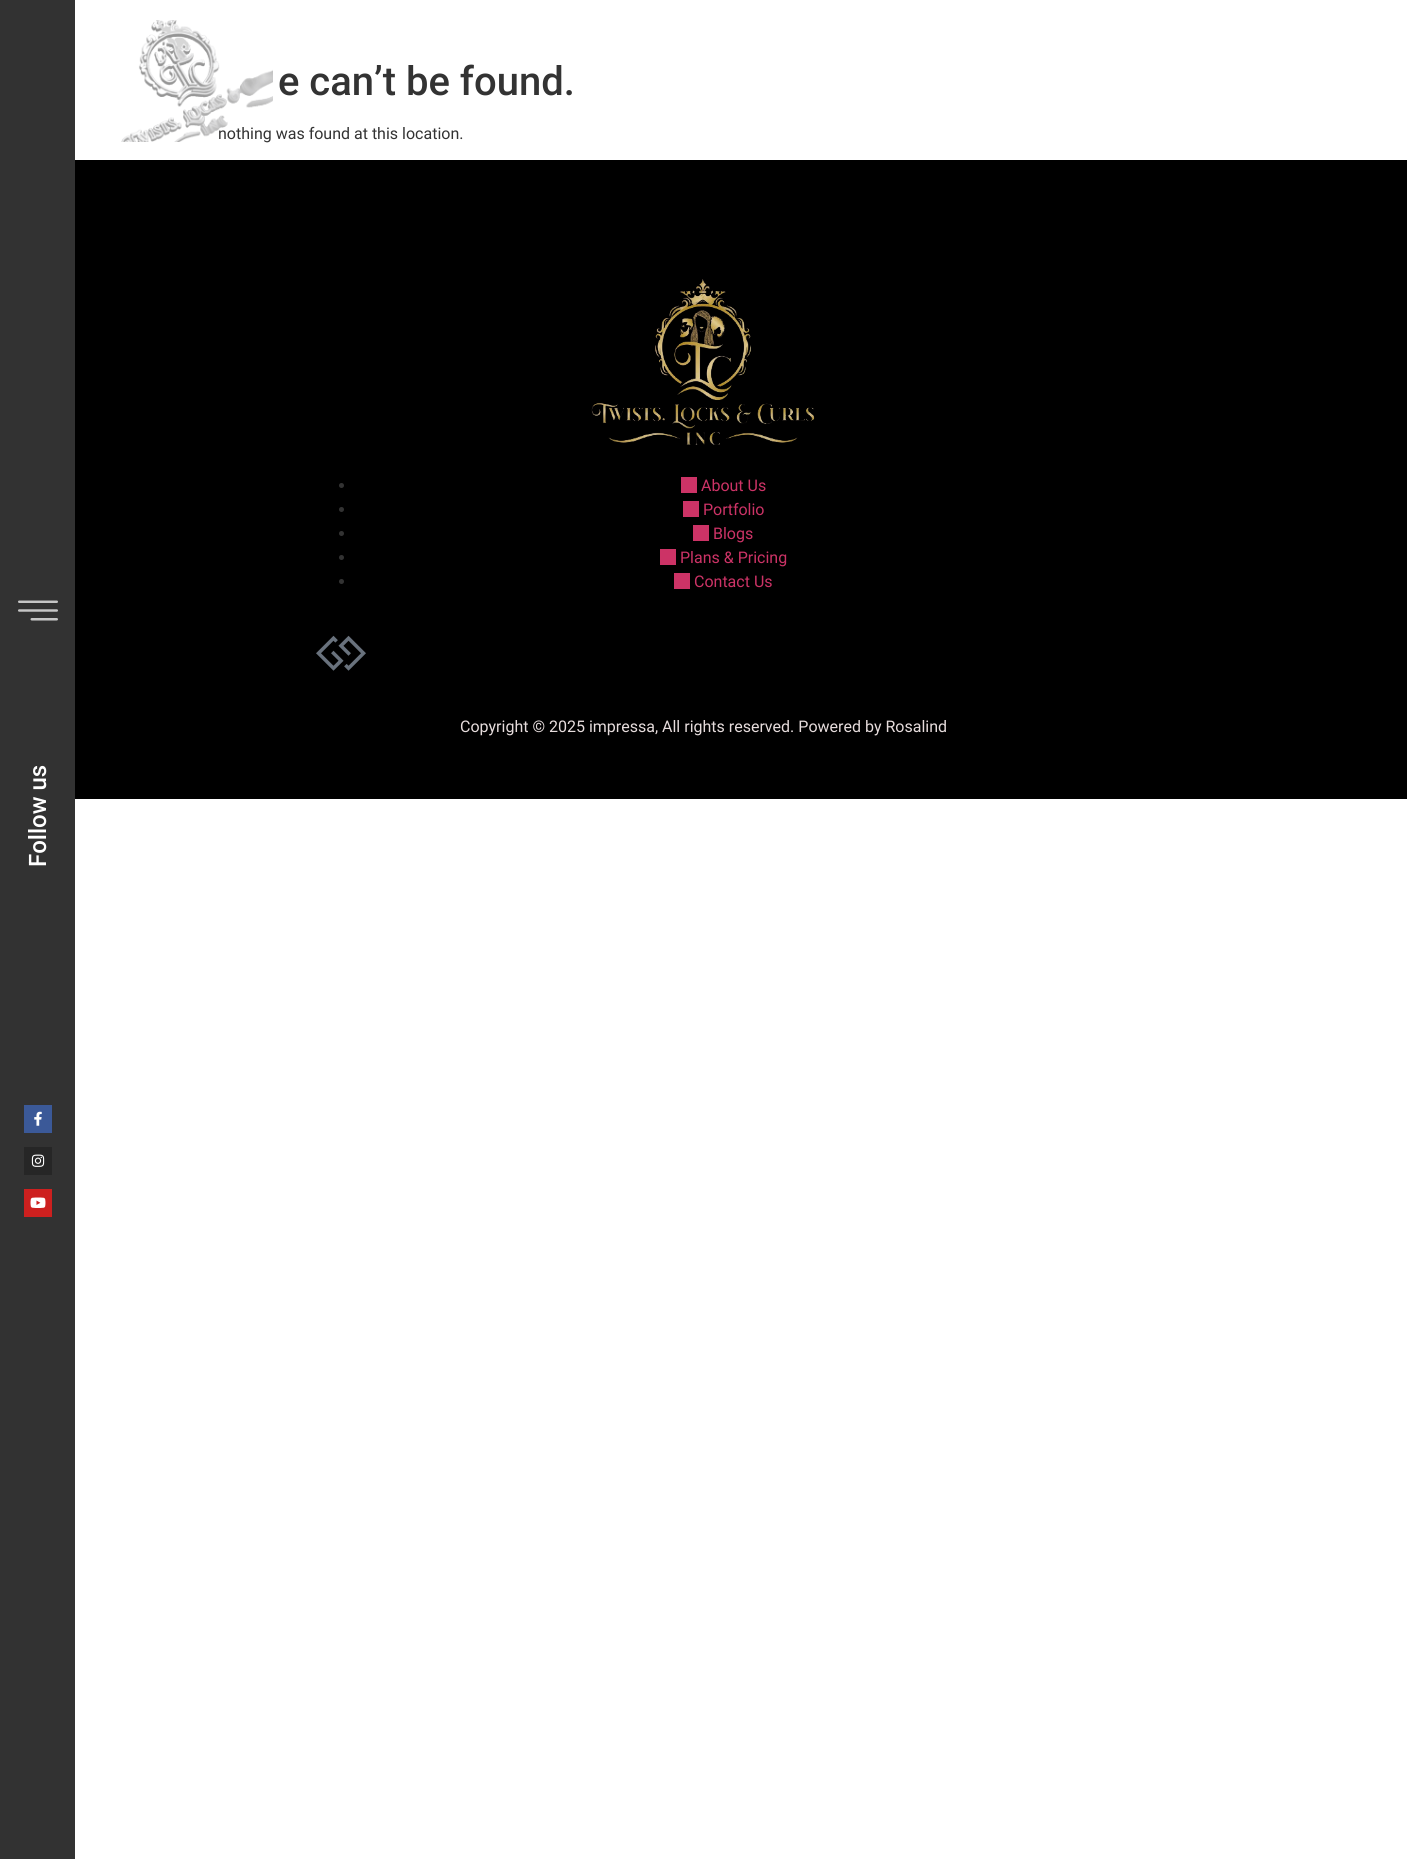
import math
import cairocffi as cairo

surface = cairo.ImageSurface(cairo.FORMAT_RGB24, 1407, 1859)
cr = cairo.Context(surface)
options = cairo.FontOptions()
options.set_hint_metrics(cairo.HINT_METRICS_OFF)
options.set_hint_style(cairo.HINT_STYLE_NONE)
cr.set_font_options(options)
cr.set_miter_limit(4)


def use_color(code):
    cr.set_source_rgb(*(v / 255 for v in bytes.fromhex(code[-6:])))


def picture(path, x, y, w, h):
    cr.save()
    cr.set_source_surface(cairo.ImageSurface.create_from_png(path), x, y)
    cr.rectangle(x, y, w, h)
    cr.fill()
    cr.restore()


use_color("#ffffff")
cr.paint()
cr.select_font_face("Roboto")
cr.set_font_size(16)
use_color("#333333")
cr.move_to(218, 139)
cr.show_text("nothing was found at this location.")
picture("img1.png", 121, 20, 152, 122)
cr.select_font_face("Roboto Medium")
cr.set_font_size(40)
cr.move_to(278, 95)
cr.show_text("e can’t be found.")
use_color("#000000")
cr.rectangle(75, 160, 1332, 639)
cr.fill()
picture("img2.png", 591, 279, 224, 166)
use_color("#333333")
cr.arc(341.5, 485.5, 2.5, 0, 2 * math.pi)
cr.fill()
use_color("#cc3366")
cr.rectangle(681, 477, 16, 16)
cr.fill()
cr.select_font_face("Roboto")
cr.set_font_size(16)
cr.move_to(701, 491)
cr.show_text("About Us")
use_color("#333333")
cr.new_path()
cr.arc(341.5, 509.5, 2.5, 0, 2 * math.pi)
cr.fill()
use_color("#cc3366")
cr.rectangle(683, 501, 16, 16)
cr.fill()
cr.move_to(703, 515)
cr.show_text("Portfolio")
use_color("#333333")
cr.new_path()
cr.arc(341.5, 533.5, 2.5, 0, 2 * math.pi)
cr.fill()
use_color("#cc3366")
cr.rectangle(693, 525, 16, 16)
cr.fill()
cr.move_to(713, 539)
cr.show_text("Blogs")
use_color("#333333")
cr.new_path()
cr.arc(341.5, 557.5, 2.5, 0, 2 * math.pi)
cr.fill()
use_color("#cc3366")
cr.rectangle(660, 549, 16, 16)
cr.fill()
cr.move_to(680, 563)
cr.show_text("Plans & Pricing")
use_color("#333333")
cr.new_path()
cr.arc(341.5, 581.5, 2.5, 0, 2 * math.pi)
cr.fill()
use_color("#cc3366")
cr.rectangle(674, 573, 16, 16)
cr.fill()
cr.move_to(694, 587)
cr.show_text("Contact Us")
picture("img3.png", 316, 635, 50, 36)
use_color("#e6dcdc")
cr.move_to(460, 732)
cr.show_text("Copyright © 2025 impressa, All rights reserved. Powered by Rosalind")
use_color("#323232")
cr.rectangle(0, 0, 75, 1859)
cr.fill()
picture("img4.png", 18, 600, 40, 21)
cr.select_font_face("Roboto Medium")
cr.set_font_size(24)
use_color("#ffffff")
cr.save()
cr.translate(46, 867)
cr.rotate(-90 * math.pi / 180)
cr.move_to(0, 0)
cr.show_text("Follow us")
cr.restore()
use_color("#3b5998")
cr.rectangle(24, 1105, 28, 28)
cr.fill()
picture("img5.png", 34, 1111, 8, 15)
use_color("#262626")
cr.rectangle(24, 1147, 28, 28)
cr.fill()
picture("img6.png", 31, 1154, 14, 13)
use_color("#cd201f")
cr.rectangle(24, 1189, 28, 28)
cr.fill()
picture("img7.png", 30, 1197, 16, 11)
surface.write_to_png("result.png")
